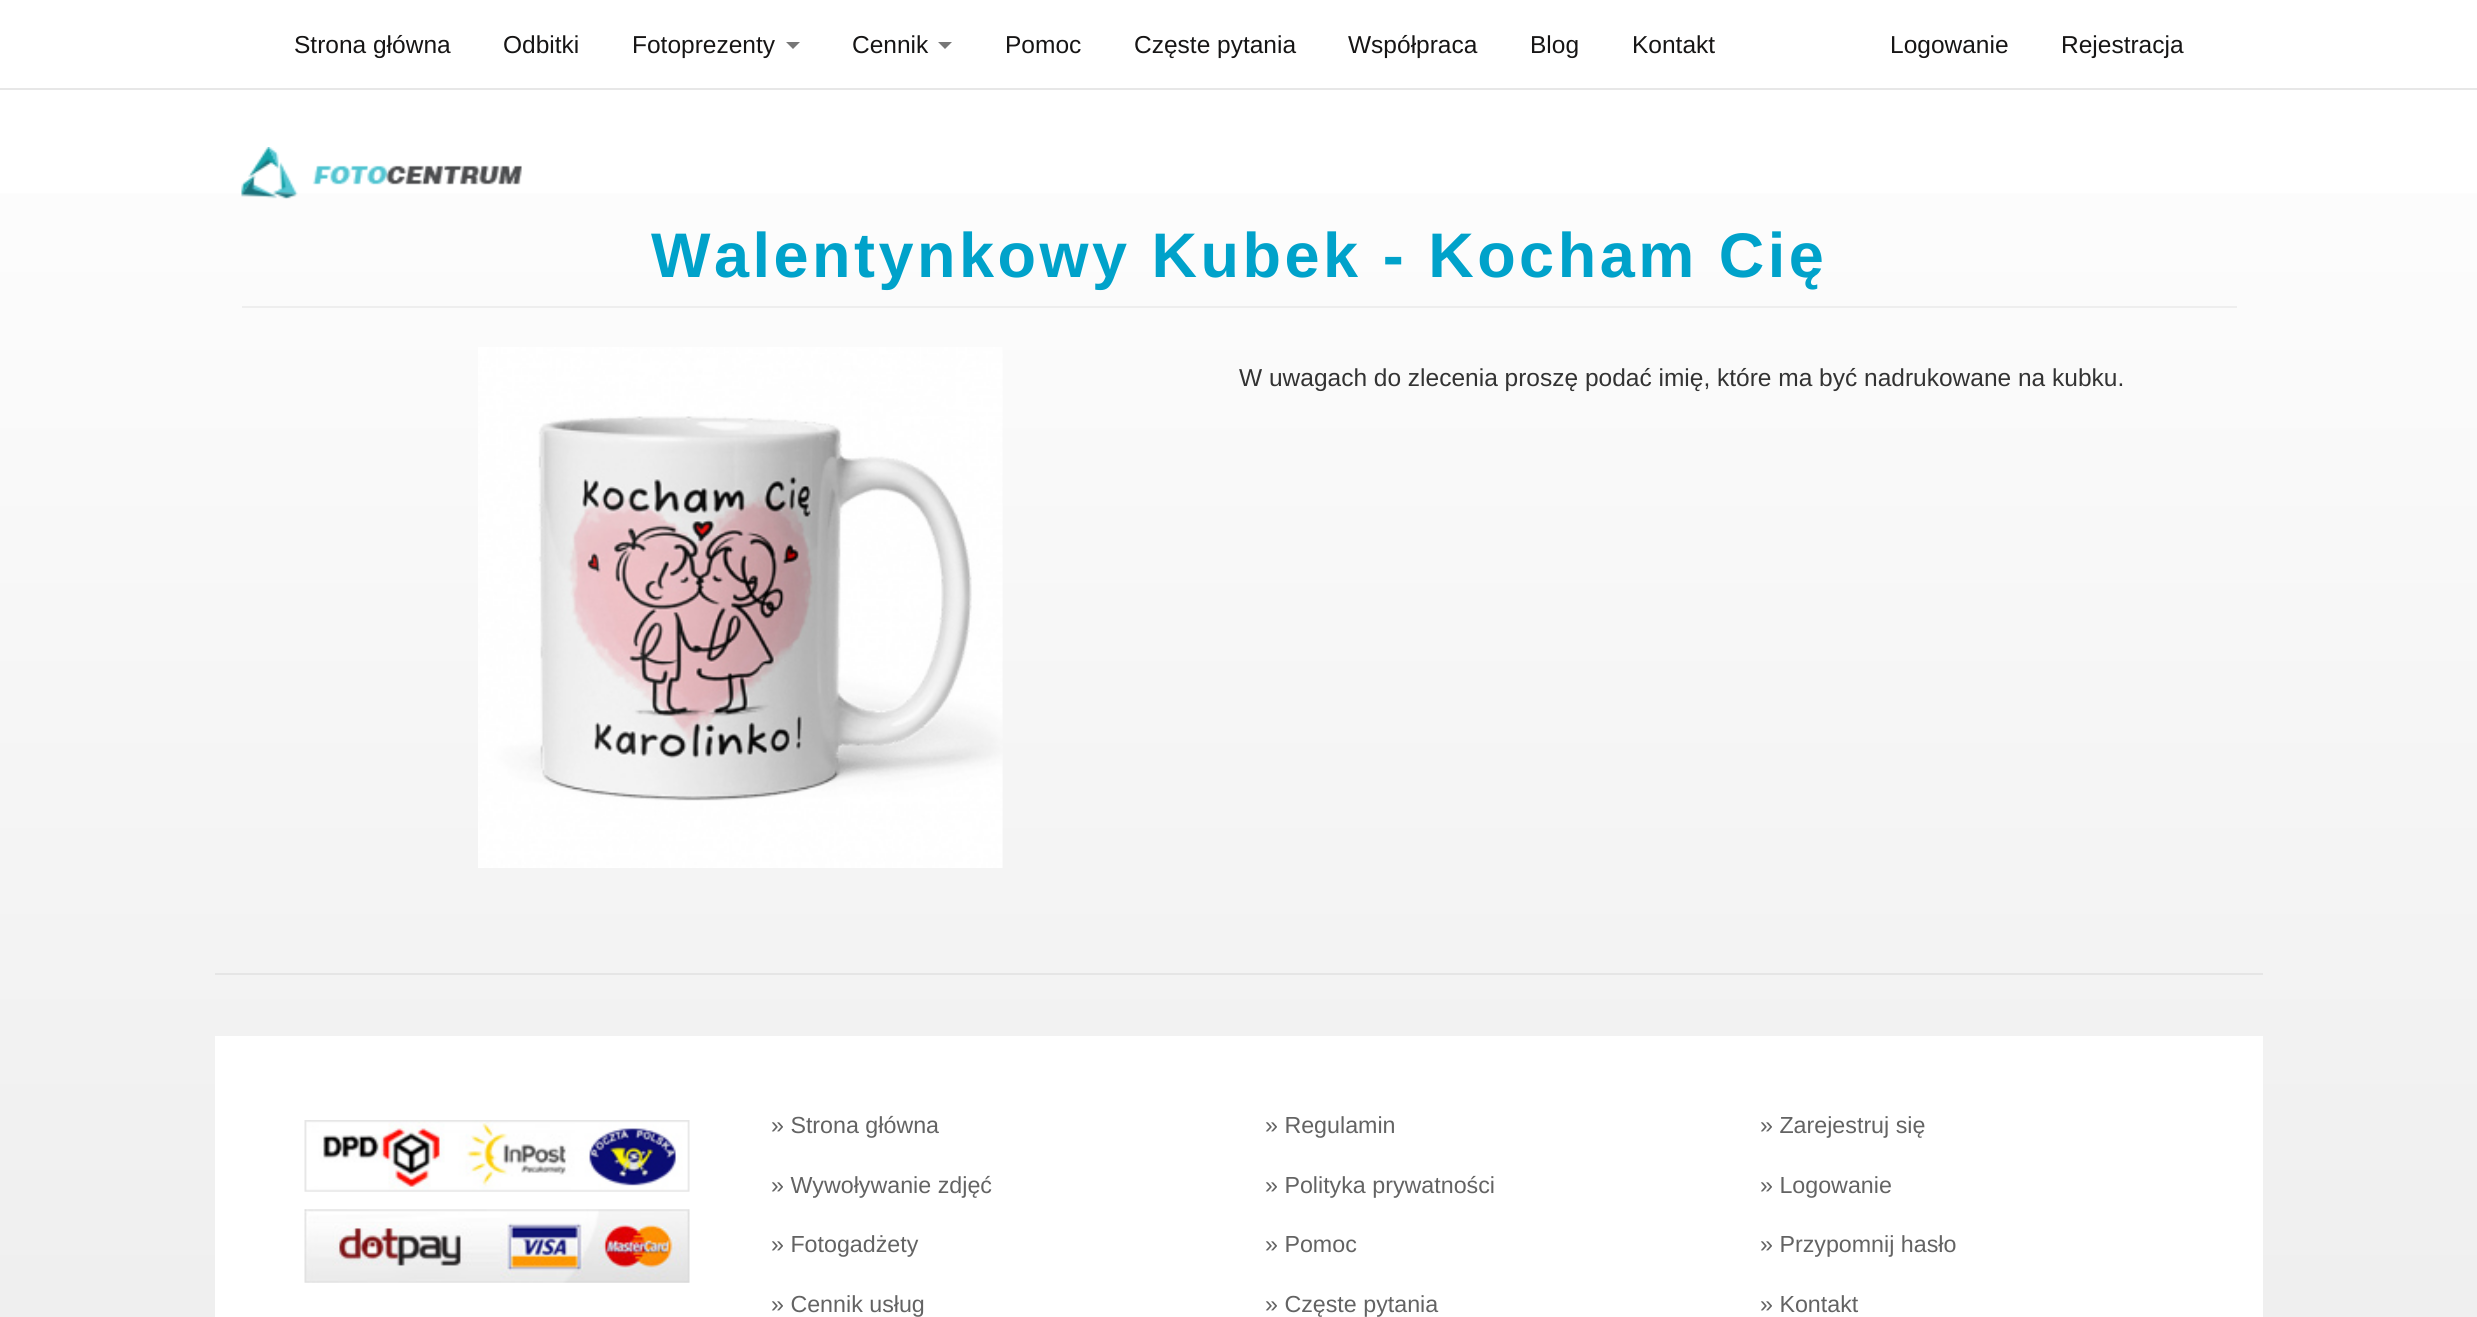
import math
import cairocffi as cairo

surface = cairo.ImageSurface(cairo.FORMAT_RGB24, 2477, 1317)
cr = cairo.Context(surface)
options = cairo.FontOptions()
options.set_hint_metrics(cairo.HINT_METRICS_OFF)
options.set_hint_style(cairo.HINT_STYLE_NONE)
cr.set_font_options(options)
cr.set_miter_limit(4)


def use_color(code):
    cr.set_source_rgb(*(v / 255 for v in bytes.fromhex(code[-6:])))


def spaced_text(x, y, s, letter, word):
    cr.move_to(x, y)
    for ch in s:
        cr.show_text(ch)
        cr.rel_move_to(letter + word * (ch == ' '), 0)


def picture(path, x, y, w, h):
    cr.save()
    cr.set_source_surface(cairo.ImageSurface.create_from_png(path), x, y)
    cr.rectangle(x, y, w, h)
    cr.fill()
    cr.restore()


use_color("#ffffff")
cr.paint()
gradient = cairo.LinearGradient(1239, 0, 1239, 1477)
gradient.add_color_stop_rgba(0, 1, 1, 1, 1)
gradient.add_color_stop_rgba(0.47, 0.965, 0.965, 0.965, 1)
gradient.add_color_stop_rgba(1, 0.929, 0.929, 0.929, 1)
cr.set_source(gradient)
cr.rectangle(0, 193, 2477, 1124)
cr.fill()
use_color("#e7e7e7")
cr.rectangle(0, 88, 2477, 2)
cr.fill()
cr.select_font_face("Liberation Sans")
cr.set_font_size(24.5)
use_color("#161515")
cr.move_to(294, 53)
cr.show_text("Strona główna")
cr.move_to(503, 53)
cr.show_text("Odbitki")
cr.move_to(632, 53)
cr.show_text("Fotoprezenty")
use_color("#777777")
cr.new_path()
cr.move_to(786, 42)
cr.line_to(800, 42)
cr.line_to(793, 49)
cr.close_path()
cr.fill()
use_color("#161515")
cr.move_to(852, 53)
cr.show_text("Cennik")
use_color("#777777")
cr.new_path()
cr.move_to(938, 42)
cr.line_to(952, 42)
cr.line_to(945, 49)
cr.close_path()
cr.fill()
use_color("#161515")
cr.move_to(1005, 53)
cr.show_text("Pomoc")
cr.move_to(1134, 53)
cr.show_text("Częste pytania")
cr.move_to(1348, 53)
cr.show_text("Współpraca")
cr.move_to(1530, 53)
cr.show_text("Blog")
cr.move_to(1632, 53)
cr.show_text("Kontakt")
cr.move_to(1890, 53)
cr.show_text("Logowanie")
cr.move_to(2061, 53)
cr.show_text("Rejestracja")
picture("img1.png", 241, 147, 281, 52)
use_color("#eeeeee")
cr.rectangle(242, 306, 1995, 2)
cr.fill()
cr.select_font_face("Liberation Sans", cairo.FONT_SLANT_NORMAL, cairo.FONT_WEIGHT_BOLD)
cr.set_font_size(63)
use_color("#00a2ca")
spaced_text(651, 277, "Walentynkowy Kubek - Kocham Cię", 3.5, 0)
picture("img2.png", 478, 347, 525, 521)
cr.select_font_face("Liberation Sans")
cr.set_font_size(24.5)
use_color("#333333")
cr.move_to(1239, 386)
cr.show_text("W uwagach do zlecenia proszę podać imię, które ma być nadrukowane na kubku.")
use_color("#e5e5e5")
cr.rectangle(215, 973, 2048, 2)
cr.fill()
use_color("#ffffff")
cr.rectangle(215, 1036, 2048, 281)
cr.fill()
picture("img3.png", 304, 1120, 386, 72)
picture("img4.png", 304, 1209, 386, 74)
cr.set_font_size(23.25)
use_color("#636363")
cr.move_to(771, 1133)
cr.show_text("» Strona główna")
cr.move_to(771, 1193)
cr.show_text("» Wywoływanie zdjęć")
cr.move_to(771, 1252)
cr.show_text("» Fotogadżety")
cr.move_to(771, 1312)
cr.show_text("» Cennik usług")
cr.move_to(1265, 1133)
cr.show_text("» Regulamin")
cr.move_to(1265, 1193)
cr.show_text("» Polityka prywatności")
cr.move_to(1265, 1252)
cr.show_text("» Pomoc")
cr.move_to(1265, 1312)
cr.show_text("» Częste pytania")
cr.move_to(1760, 1133)
cr.show_text("» Zarejestruj się")
cr.move_to(1760, 1193)
cr.show_text("» Logowanie")
cr.move_to(1760, 1252)
cr.show_text("» Przypomnij hasło")
cr.move_to(1760, 1312)
cr.show_text("» Kontakt")
surface.write_to_png("result.png")
